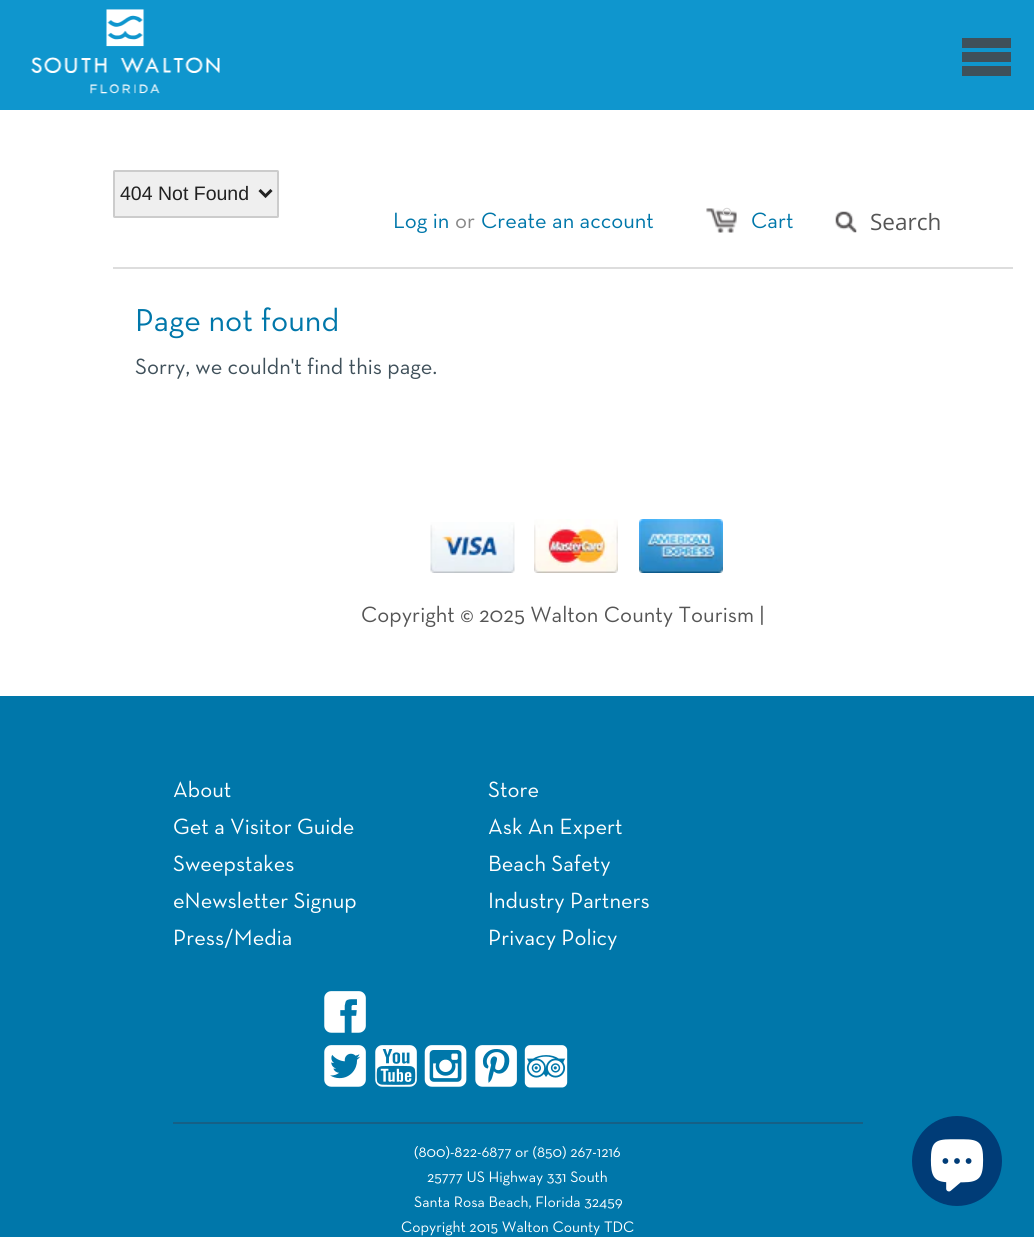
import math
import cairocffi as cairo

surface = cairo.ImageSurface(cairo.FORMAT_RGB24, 1034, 1237)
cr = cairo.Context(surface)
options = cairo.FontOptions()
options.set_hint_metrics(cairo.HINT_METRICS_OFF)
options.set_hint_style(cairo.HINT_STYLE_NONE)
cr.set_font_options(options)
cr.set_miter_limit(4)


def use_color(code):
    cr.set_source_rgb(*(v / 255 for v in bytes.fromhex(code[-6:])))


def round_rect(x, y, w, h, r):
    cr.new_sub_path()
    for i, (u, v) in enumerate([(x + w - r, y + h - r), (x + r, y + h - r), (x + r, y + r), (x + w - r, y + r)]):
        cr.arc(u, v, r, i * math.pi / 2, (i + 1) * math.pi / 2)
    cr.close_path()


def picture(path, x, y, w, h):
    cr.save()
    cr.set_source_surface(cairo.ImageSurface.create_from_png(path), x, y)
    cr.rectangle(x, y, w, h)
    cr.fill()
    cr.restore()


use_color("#ffffff")
cr.paint()
use_color("#0f96ce")
cr.rectangle(0, 0, 1034, 110)
cr.fill()
picture("img1.png", 31, 9, 189, 85)
use_color("#3f505a")
cr.new_path()
cr.move_to(962, 38)
cr.line_to(1011, 38)
cr.line_to(1011, 48)
cr.line_to(962, 48)
cr.close_path()
cr.move_to(962, 52)
cr.line_to(1011, 52)
cr.line_to(1011, 62)
cr.line_to(962, 62)
cr.close_path()
cr.move_to(962, 66)
cr.line_to(1011, 66)
cr.line_to(1011, 76)
cr.line_to(962, 76)
cr.close_path()
cr.fill()
use_color("#dddddd")
cr.rectangle(113, 267, 900, 2)
cr.fill()
use_color("#efefef")
round_rect(114, 171, 164, 46, 0.5)
cr.fill_preserve()
use_color("#cccccc")
cr.stroke()
cr.new_path()
cr.move_to(259.5, 190)
cr.line_to(265.5, 196)
cr.line_to(271.5, 190)
use_color("#222222")
cr.set_line_width(3)
cr.stroke()
cr.select_font_face("Liberation Sans")
cr.set_font_size(19.5)
cr.move_to(120, 200)
cr.show_text("404 Not Found")
cr.select_font_face("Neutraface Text")
cr.set_font_size(22.5)
use_color("#0077aa")
cr.move_to(393, 228)
cr.show_text("Log in")
use_color("#888888")
cr.move_to(455, 228)
cr.show_text("or")
use_color("#0077aa")
cr.move_to(481, 228)
cr.show_text("Create an account")
picture("img2.png", 706, 208, 31, 25)
cr.set_font_size(16)
use_color("#d5d4d4")
cr.move_to(722, 216)
cr.show_text("0")
cr.set_font_size(22.5)
use_color("#0077aa")
cr.move_to(751, 228)
cr.show_text("Cart")
picture("img3.png", 835, 211, 22, 22)
cr.select_font_face("Open Sans")
use_color("#555555")
cr.move_to(870, 230)
cr.show_text("Search")
cr.select_font_face("Neutraface Text")
cr.set_font_size(32.25)
use_color("#0077aa")
cr.move_to(135, 331)
cr.show_text("Page not found")
cr.set_font_size(22.5)
use_color("#3f505a")
cr.move_to(135, 374)
cr.show_text("Sorry, we couldn't find this page.")
picture("img4.png", 430, 522, 85, 51)
picture("img5.png", 534, 519, 84, 54)
picture("img6.png", 639, 519, 84, 54)
use_color("#555555")
cr.move_to(361, 622)
cr.show_text("Copyright © 2025 Walton County Tourism |")
use_color("#0077aa")
cr.rectangle(0, 696, 1034, 541)
cr.fill()
use_color("#ffffff")
cr.move_to(173, 797)
cr.show_text("About")
cr.move_to(173, 834)
cr.show_text("Get a Visitor Guide")
cr.move_to(173, 871)
cr.show_text("Sweepstakes")
cr.move_to(173, 908)
cr.show_text("eNewsletter Signup")
cr.move_to(173, 945)
cr.show_text("Press/Media")
cr.move_to(488, 797)
cr.show_text("Store")
cr.move_to(488, 834)
cr.show_text("Ask An Expert")
cr.move_to(488, 871)
cr.show_text("Beach Safety")
cr.move_to(488, 908)
cr.show_text("Industry Partners")
cr.move_to(488, 945)
cr.show_text("Privacy Policy")
picture("img7.png", 324, 991, 42, 42)
picture("img8.png", 324, 1045, 42, 42)
picture("img9.png", 375, 1045, 42, 42)
picture("img10.png", 424, 1045, 43, 42)
picture("img11.png", 475, 1045, 42, 42)
picture("img12.png", 524, 1045, 44, 43)
use_color("#166086")
cr.rectangle(173, 1122, 690, 2)
cr.fill()
cr.set_font_size(15.5)
use_color("#ffffff")
cr.move_to(414, 1157)
cr.show_text("(800)-822-6877 or (850) 267-1216")
cr.move_to(427, 1182)
cr.show_text("25777 US Highway 331 South")
cr.move_to(414, 1207)
cr.show_text("Santa Rosa Beach, Florida 32459")
cr.move_to(401, 1232)
cr.show_text("Copyright 2015 Walton County TDC")
use_color("#003c77")
cr.new_path()
cr.arc(957, 1161, 45, 0, 2 * math.pi)
cr.fill()
picture("img13.png", 930, 1139, 54, 53)
surface.write_to_png("result.png")
